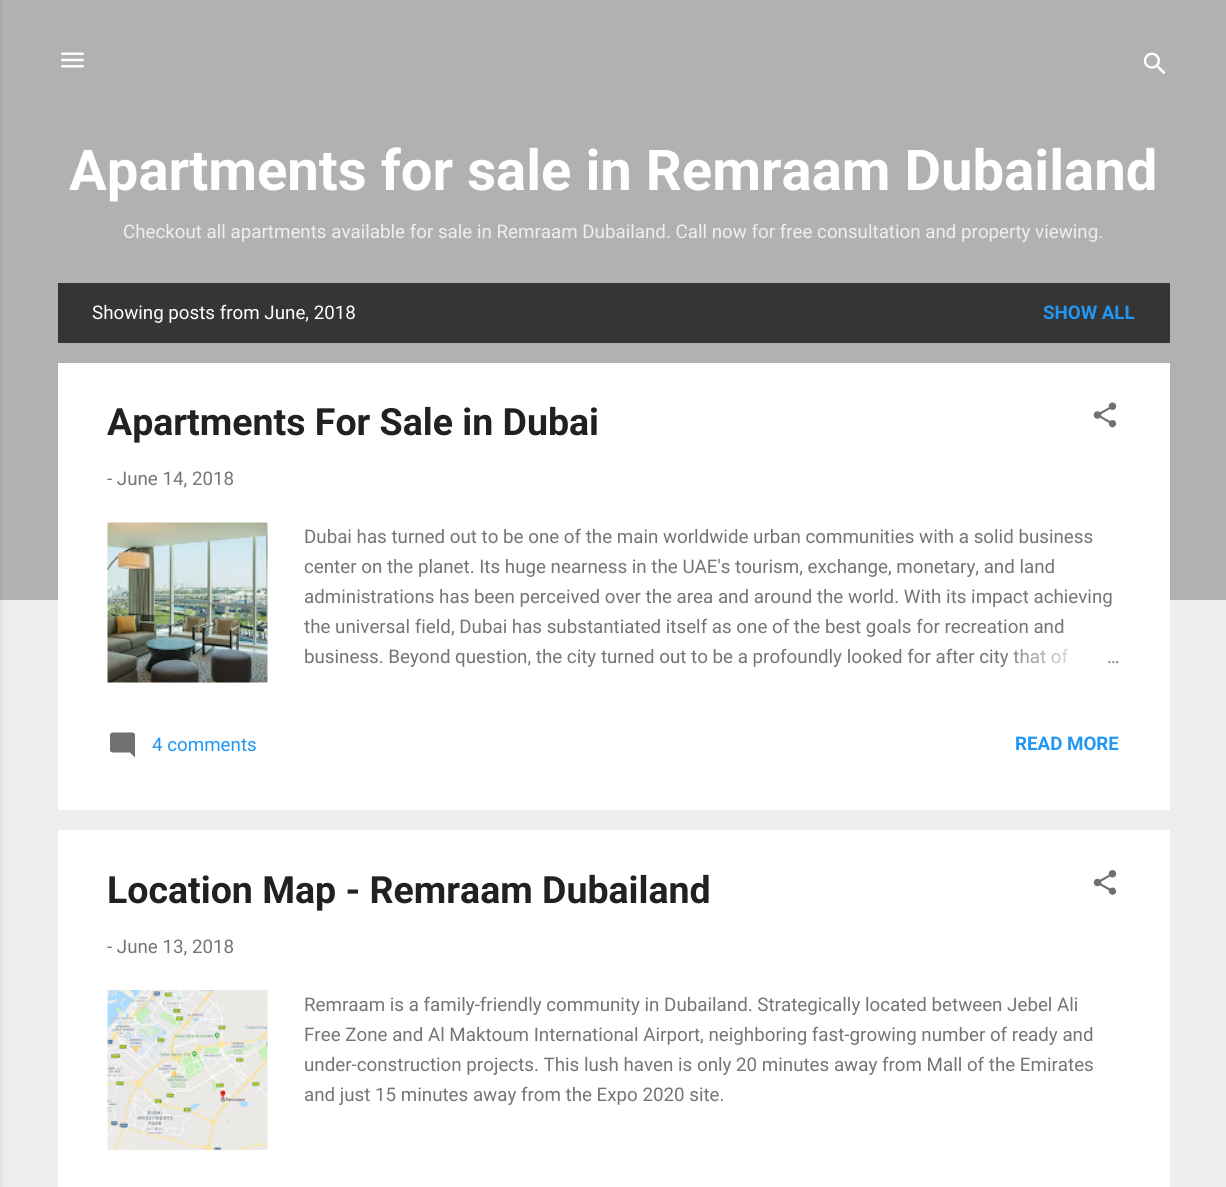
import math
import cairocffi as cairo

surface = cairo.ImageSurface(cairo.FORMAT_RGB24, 1226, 1187)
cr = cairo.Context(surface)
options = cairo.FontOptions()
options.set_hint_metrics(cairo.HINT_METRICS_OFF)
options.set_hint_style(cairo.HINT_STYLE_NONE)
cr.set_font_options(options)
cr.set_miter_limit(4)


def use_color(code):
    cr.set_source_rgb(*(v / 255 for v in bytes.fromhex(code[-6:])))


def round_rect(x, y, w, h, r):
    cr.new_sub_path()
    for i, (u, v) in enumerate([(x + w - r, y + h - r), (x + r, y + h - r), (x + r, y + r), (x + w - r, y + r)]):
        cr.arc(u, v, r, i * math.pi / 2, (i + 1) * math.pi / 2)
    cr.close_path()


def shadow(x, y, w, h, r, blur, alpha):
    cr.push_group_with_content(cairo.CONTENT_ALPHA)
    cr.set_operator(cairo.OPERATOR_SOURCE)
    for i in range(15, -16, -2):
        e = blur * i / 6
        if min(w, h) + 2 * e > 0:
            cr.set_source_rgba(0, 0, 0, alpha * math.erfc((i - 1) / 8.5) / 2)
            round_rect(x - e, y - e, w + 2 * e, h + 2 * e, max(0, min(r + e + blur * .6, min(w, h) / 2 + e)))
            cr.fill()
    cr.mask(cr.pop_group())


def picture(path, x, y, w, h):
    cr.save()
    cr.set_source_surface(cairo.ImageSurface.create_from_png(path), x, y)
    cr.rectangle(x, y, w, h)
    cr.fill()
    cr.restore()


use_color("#eeeeee")
cr.paint()
use_color("#b1b1b1")
cr.rectangle(0, 0, 1226, 600)
cr.fill()
use_color("#000000")
shadow(-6, 1, 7, 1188, 0, 2, 0.1)
picture("img1.png", 61, 52, 23, 16)
picture("img2.png", 1143, 52, 23, 23)
cr.select_font_face("Roboto", cairo.FONT_SLANT_NORMAL, cairo.FONT_WEIGHT_BOLD)
cr.set_font_size(56.25)
use_color("#ffffff")
cr.move_to(69, 190)
cr.show_text("Apartments for sale in Remraam Dubailand")
cr.select_font_face("Roboto")
cr.set_font_size(18.75)
use_color("#efefef")
cr.move_to(123, 238)
cr.show_text("Checkout all apartments available for sale in Remraam Dubailand. Call now for free consultation and property viewing.")
use_color("#353535")
cr.rectangle(58, 283, 1112, 60)
cr.fill()
use_color("#ffffff")
cr.move_to(92, 319)
cr.show_text("Showing posts from June, 2018")
cr.select_font_face("Roboto", cairo.FONT_SLANT_NORMAL, cairo.FONT_WEIGHT_BOLD)
use_color("#2196f3")
cr.move_to(1043, 319)
cr.show_text("SHOW ALL")
use_color("#ffffff")
cr.rectangle(58, 363, 1112, 447)
cr.fill()
cr.set_font_size(37.5)
use_color("#212121")
cr.move_to(107, 435)
cr.show_text("Apartments For Sale in Dubai")
picture("img3.png", 1093, 402, 24, 26)
cr.select_font_face("Roboto")
cr.set_font_size(18.75)
use_color("#757575")
cr.move_to(107, 485)
cr.show_text("- June 14, 2018")
picture("img4.png", 107, 522, 161, 161)
cr.move_to(304, 543)
cr.show_text("Dubai has turned out to be one of the main worldwide urban communities with a solid business")
cr.move_to(304, 573)
cr.show_text("center on the planet. Its huge nearness in the UAE's tourism, exchange, monetary, and land")
cr.move_to(304, 603)
cr.show_text("administrations has been perceived over the area and around the world. With its impact achieving")
cr.move_to(304, 633)
cr.show_text("the universal field, Dubai has substantiated itself as one of the best goals for recreation and")
cr.move_to(304, 663)
cr.show_text("business. Beyond question, the city turned out to be a profoundly looked for after city that of")
gradient = cairo.LinearGradient(1120, 658, 1000, 658)
gradient.add_color_stop_rgba(0, 1, 1, 1, 1)
gradient.add_color_stop_rgba(0.2, 1, 1, 1, 1)
gradient.add_color_stop_rgba(1, 1, 1, 1, 0)
cr.set_source(gradient)
cr.rectangle(1002, 648, 67, 19)
cr.fill()
use_color("#757575")
cr.move_to(1107, 663)
cr.show_text("…")
picture("img5.png", 110, 732, 25, 26)
use_color("#2196f3")
cr.move_to(152, 751)
cr.show_text("4 comments")
cr.select_font_face("Roboto", cairo.FONT_SLANT_NORMAL, cairo.FONT_WEIGHT_BOLD)
cr.move_to(1015, 750)
cr.show_text("READ MORE")
use_color("#ffffff")
cr.rectangle(58, 830, 1112, 357)
cr.fill()
cr.set_font_size(37.5)
use_color("#212121")
cr.move_to(107, 903)
cr.show_text("Location Map - Remraam Dubailand")
picture("img6.png", 1093, 870, 24, 25)
cr.select_font_face("Roboto")
cr.set_font_size(18.75)
use_color("#757575")
cr.move_to(107, 953)
cr.show_text("- June 13, 2018")
picture("img7.png", 107, 990, 161, 160)
cr.move_to(304, 1011)
cr.show_text("Remraam is a family-friendly community in Dubailand. Strategically located between Jebel Ali")
cr.move_to(304, 1041)
cr.show_text("Free Zone and Al Maktoum International Airport, neighboring fast-growing number of ready and")
cr.move_to(304, 1071)
cr.show_text("under-construction projects. This lush haven is only 20 minutes away from Mall of the Emirates")
cr.move_to(304, 1101)
cr.show_text("and just 15 minutes away from the Expo 2020 site.")
surface.write_to_png("result.png")
